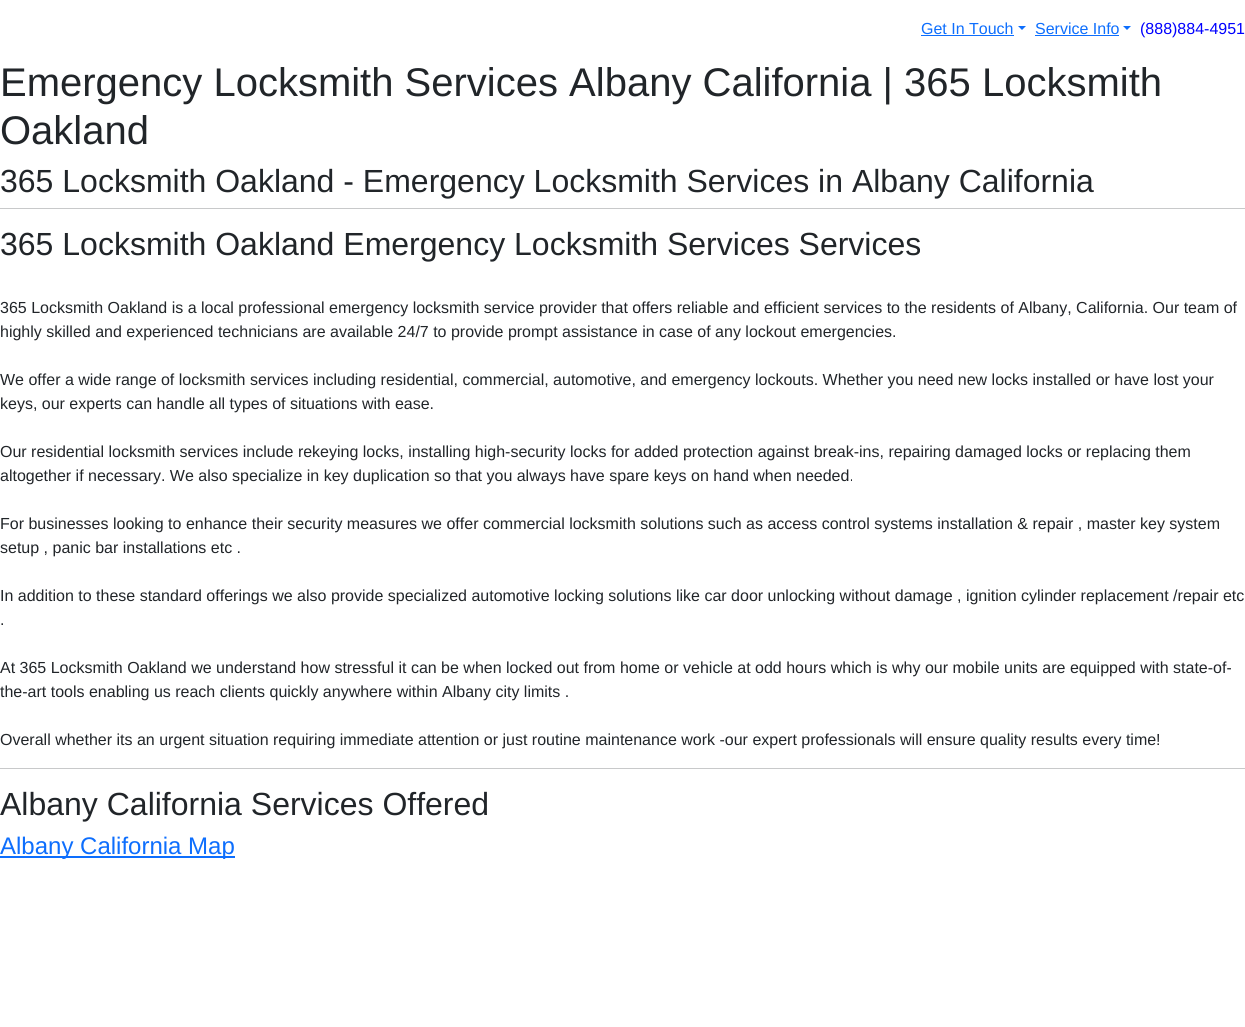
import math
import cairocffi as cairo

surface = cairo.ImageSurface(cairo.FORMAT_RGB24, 1245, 1027)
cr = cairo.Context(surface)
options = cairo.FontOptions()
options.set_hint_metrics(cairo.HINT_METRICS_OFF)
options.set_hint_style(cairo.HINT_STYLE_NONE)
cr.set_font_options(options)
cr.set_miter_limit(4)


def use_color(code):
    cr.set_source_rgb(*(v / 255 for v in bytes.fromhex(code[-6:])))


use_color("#ffffff")
cr.paint()
cr.select_font_face("Liberation Sans")
cr.set_font_size(16)
use_color("#0d6efd")
cr.move_to(921, 34)
cr.show_text("Get In Touch")
cr.rectangle(921, 35, 93, 1)
cr.fill()
cr.new_path()
cr.move_to(1018, 26)
cr.line_to(1026, 26)
cr.line_to(1022, 30)
cr.close_path()
cr.fill()
cr.move_to(1035, 34)
cr.show_text("Service Info")
cr.rectangle(1035, 35, 84, 1)
cr.fill()
cr.new_path()
cr.move_to(1123, 26)
cr.line_to(1131, 26)
cr.line_to(1127, 30)
cr.close_path()
cr.fill()
use_color("#0000ff")
cr.move_to(1140, 34)
cr.show_text("(888)884-4951")
cr.set_font_size(40)
use_color("#212529")
cr.move_to(0, 96)
cr.show_text("Emergency Locksmith Services Albany California | 365 Locksmith")
cr.move_to(0, 144)
cr.show_text("Oakland")
cr.set_font_size(32)
cr.move_to(0, 192)
cr.show_text("365 Locksmith Oakland - Emergency Locksmith Services in Albany California")
use_color("#c8c9ca")
cr.rectangle(0, 208, 1245, 1)
cr.fill()
use_color("#212529")
cr.move_to(0, 255)
cr.show_text("365 Locksmith Oakland Emergency Locksmith Services Services")
cr.set_font_size(16)
cr.move_to(0, 313)
cr.show_text("365 Locksmith Oakland is a local professional emergency locksmith service provider that offers reliable and efficient services to the residents of Albany, California. Our team of")
cr.move_to(0, 337)
cr.show_text("highly skilled and experienced technicians are available 24/7 to provide prompt assistance in case of any lockout emergencies.")
cr.move_to(0, 385)
cr.show_text("We offer a wide range of locksmith services including residential, commercial, automotive, and emergency lockouts. Whether you need new locks installed or have lost your")
cr.move_to(0, 409)
cr.show_text("keys, our experts can handle all types of situations with ease.")
cr.move_to(0, 457)
cr.show_text("Our residential locksmith services include rekeying locks, installing high-security locks for added protection against break-ins, repairing damaged locks or replacing them")
cr.move_to(0, 481)
cr.show_text("altogether if necessary. We also specialize in key duplication so that you always have spare keys on hand when needed.")
cr.move_to(0, 529)
cr.show_text("For businesses looking to enhance their security measures we offer commercial locksmith solutions such as access control systems installation & repair , master key system")
cr.move_to(0, 553)
cr.show_text("setup , panic bar installations etc .")
cr.move_to(0, 601)
cr.show_text("In addition to these standard offerings we also provide specialized automotive locking solutions like car door unlocking without damage , ignition cylinder replacement /repair etc")
cr.move_to(0, 625)
cr.show_text(".")
cr.move_to(0, 673)
cr.show_text("At 365 Locksmith Oakland we understand how stressful it can be when locked out from home or vehicle at odd hours which is why our mobile units are equipped with state-of-")
cr.move_to(0, 697)
cr.show_text("the-art tools enabling us reach clients quickly anywhere within Albany city limits .")
cr.move_to(0, 745)
cr.show_text("Overall whether its an urgent situation requiring immediate attention or just routine maintenance work -our expert professionals will ensure quality results every time!")
use_color("#c8c9ca")
cr.rectangle(0, 768, 1245, 1)
cr.fill()
cr.set_font_size(32)
use_color("#212529")
cr.move_to(0, 815)
cr.show_text("Albany California Services Offered")
use_color("#0d6efd")
cr.rectangle(0, 856, 235, 2)
cr.fill()
cr.set_font_size(24)
cr.move_to(0, 854)
cr.show_text("Albany California Map")
surface.write_to_png("result.png")
